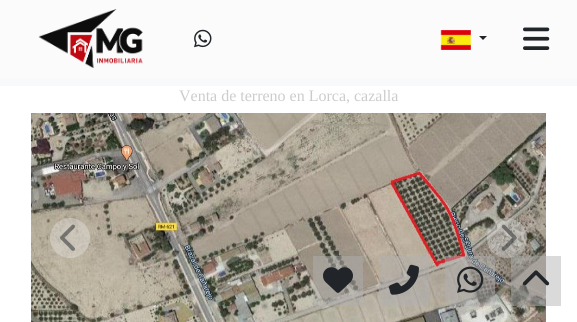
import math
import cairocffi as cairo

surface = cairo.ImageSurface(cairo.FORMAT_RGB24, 577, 322)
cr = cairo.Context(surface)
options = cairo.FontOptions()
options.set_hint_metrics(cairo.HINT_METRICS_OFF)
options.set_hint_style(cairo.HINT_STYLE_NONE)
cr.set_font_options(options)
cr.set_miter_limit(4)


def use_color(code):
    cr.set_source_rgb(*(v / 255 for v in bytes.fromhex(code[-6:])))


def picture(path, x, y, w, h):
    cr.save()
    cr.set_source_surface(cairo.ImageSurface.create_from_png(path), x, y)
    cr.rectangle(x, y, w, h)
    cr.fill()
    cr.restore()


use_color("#f8f9fa")
cr.paint()
use_color("#fbfbfc")
cr.rectangle(0, 0, 577, 78)
cr.fill()
picture("img1.png", 38, 9, 105, 59)
picture("img2.png", 194, 29, 18, 19)
picture("img3.png", 440, 30, 31, 20)
use_color("#212529")
cr.new_path()
cr.move_to(479, 36)
cr.line_to(487, 36)
cr.line_to(483, 40)
cr.close_path()
cr.fill()
picture("img4.png", 523, 27, 27, 23)
use_color("#ffffff")
cr.rectangle(0, 86, 577, 236)
cr.fill()
cr.select_font_face("Liberation Serif")
cr.set_font_size(16)
use_color("#cccccc")
cr.move_to(179, 101)
cr.show_text("Venta de terreno en Lorca, cazalla")
picture("img5.png", 31, 113, 515, 209)
cr.set_source_rgba(0.973, 0.976, 0.98, 0.3)
cr.arc(70, 238, 20, 0, 2 * math.pi)
cr.fill()
picture("img6.png", 60, 224, 15, 27)
cr.arc(507, 238, 20, 0, 2 * math.pi)
cr.fill()
picture("img7.png", 501, 224, 16, 27)
cr.set_source_rgba(0.69, 0.69, 0.69, 0.47)
cr.rectangle(313, 256, 50, 50)
cr.fill()
picture("img8.png", 323, 267, 30, 26)
cr.rectangle(379, 256, 50, 50)
cr.fill()
picture("img9.png", 389, 264, 30, 31)
cr.rectangle(445, 256, 50, 50)
cr.fill()
picture("img10.png", 457, 266, 27, 27)
cr.rectangle(511, 256, 50, 50)
cr.fill()
picture("img11.png", 522, 270, 28, 16)
surface.write_to_png("result.png")
